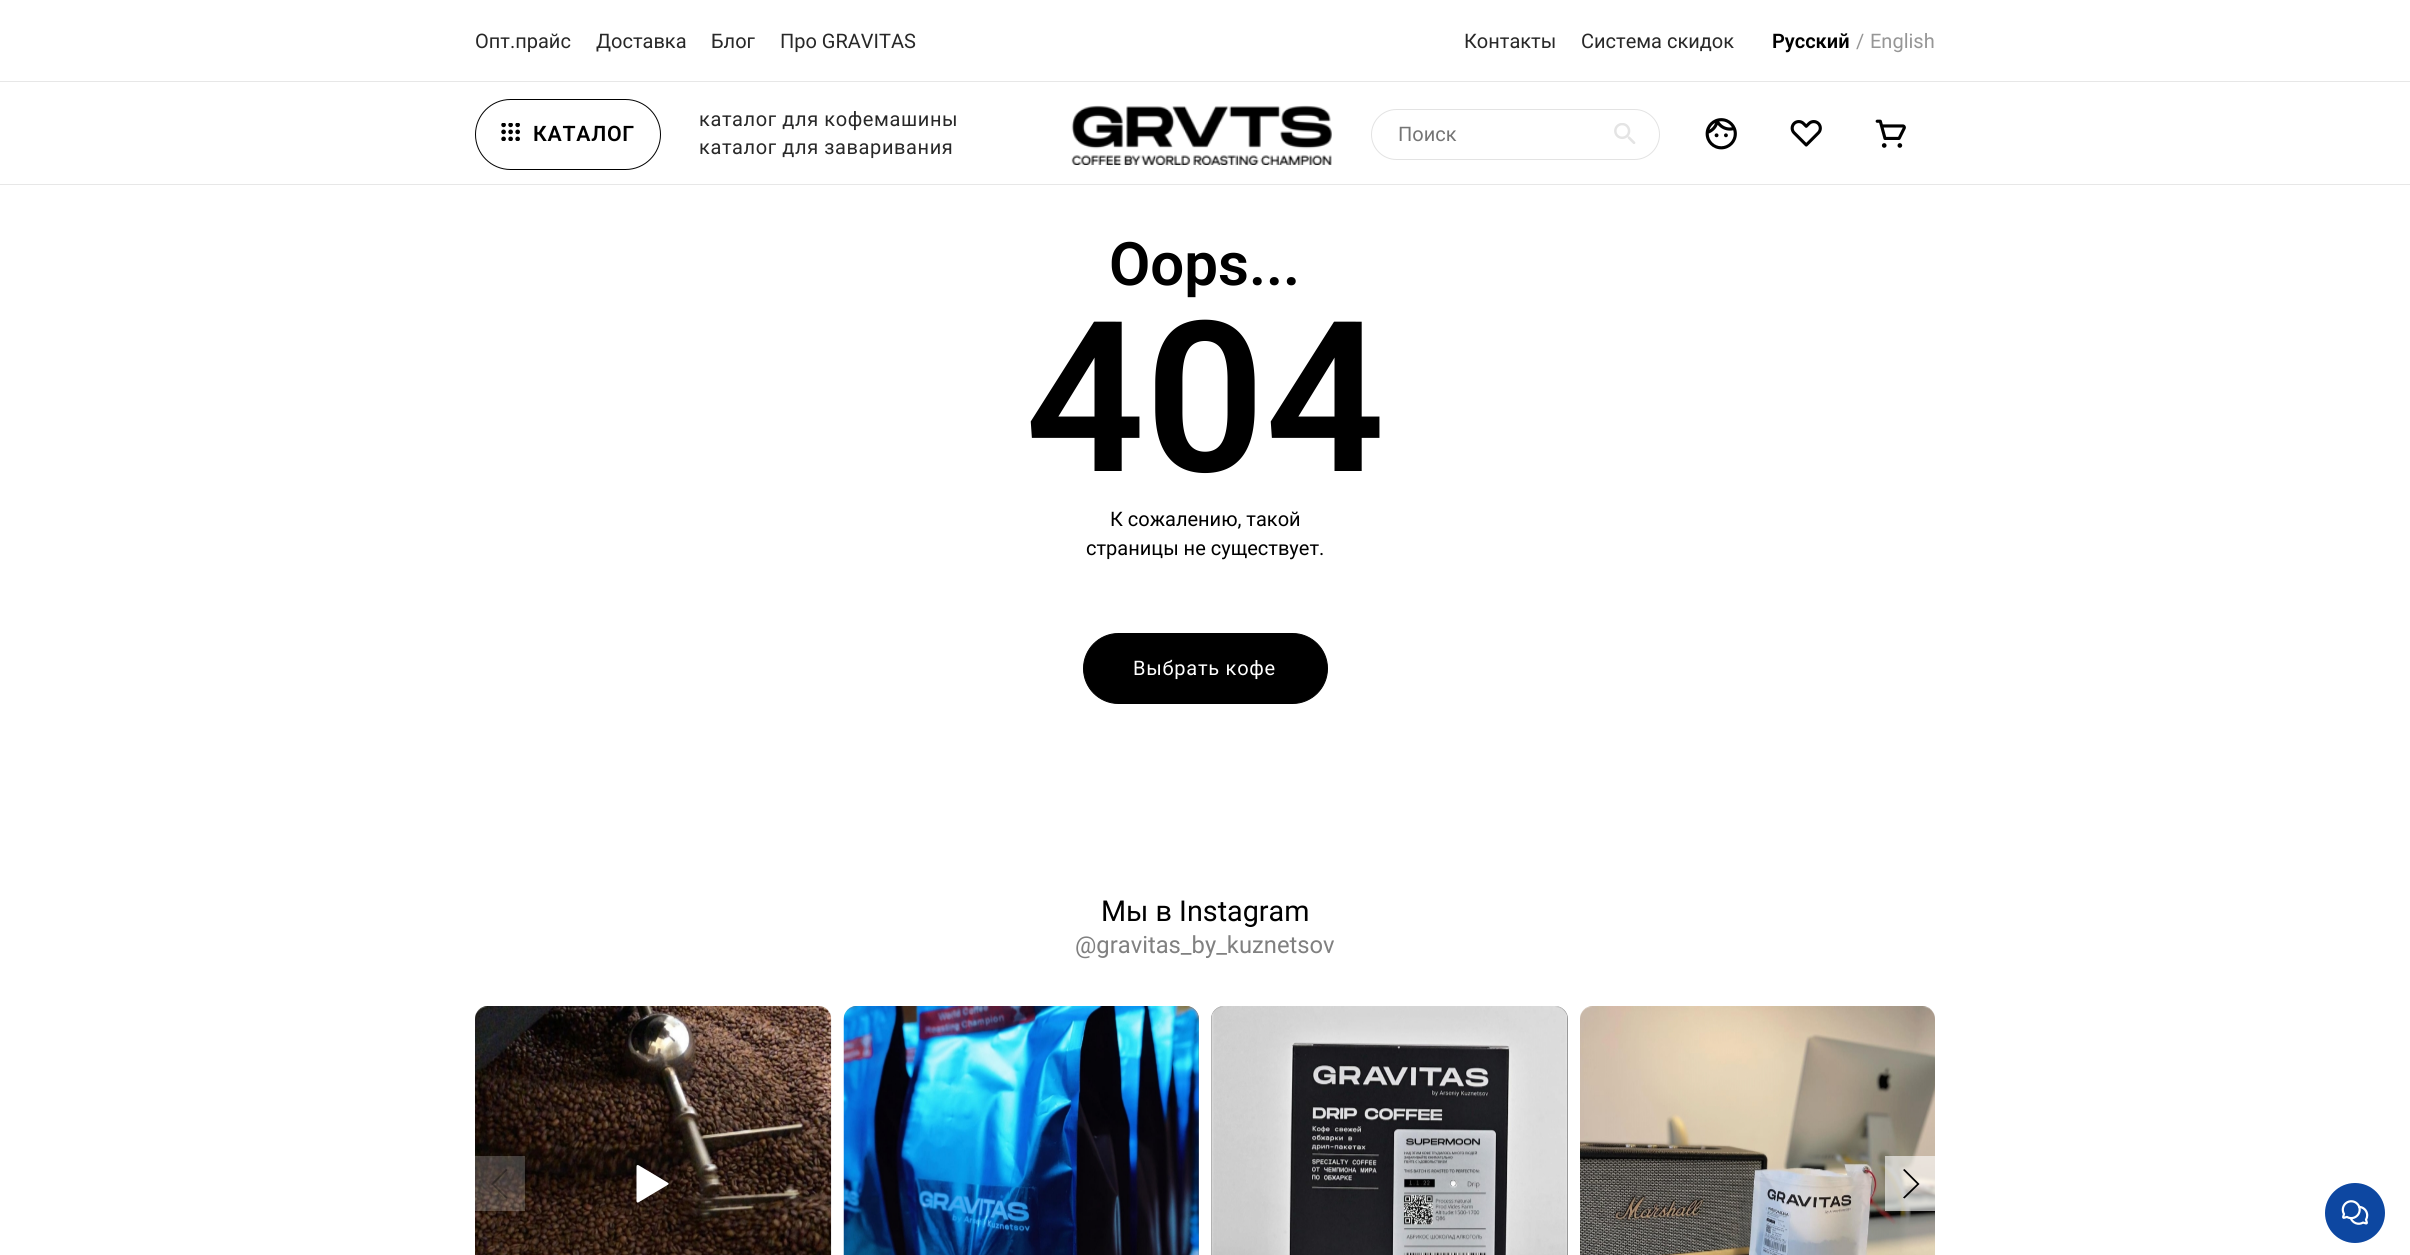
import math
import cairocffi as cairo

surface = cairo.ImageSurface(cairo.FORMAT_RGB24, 2410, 1255)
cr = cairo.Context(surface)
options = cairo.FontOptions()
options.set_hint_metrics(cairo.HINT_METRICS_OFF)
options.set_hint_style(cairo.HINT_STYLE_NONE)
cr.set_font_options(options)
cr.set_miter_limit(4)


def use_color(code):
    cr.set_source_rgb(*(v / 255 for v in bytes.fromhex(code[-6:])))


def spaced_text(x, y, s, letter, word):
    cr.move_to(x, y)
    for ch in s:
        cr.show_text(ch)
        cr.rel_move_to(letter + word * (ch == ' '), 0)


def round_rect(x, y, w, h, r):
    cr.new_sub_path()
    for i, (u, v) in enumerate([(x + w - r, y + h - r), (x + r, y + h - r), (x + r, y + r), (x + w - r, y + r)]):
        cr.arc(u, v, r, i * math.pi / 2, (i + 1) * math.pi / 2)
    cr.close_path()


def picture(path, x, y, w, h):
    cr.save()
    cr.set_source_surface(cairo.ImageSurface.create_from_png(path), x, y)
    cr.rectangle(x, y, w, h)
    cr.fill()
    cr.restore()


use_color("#ffffff")
cr.paint()
use_color("#e7e7e7")
cr.rectangle(0, 81, 2410, 1)
cr.fill()
cr.select_font_face("Roboto")
cr.set_font_size(20)
use_color("#282828")
cr.move_to(475, 48)
cr.show_text("Опт.прайс")
cr.move_to(596, 48)
cr.show_text("Доставка")
cr.move_to(711, 48)
cr.show_text("Блог")
cr.move_to(780, 48)
cr.show_text("Про GRAVITAS")
cr.move_to(1464, 48)
cr.show_text("Контакты")
cr.move_to(1581, 48)
cr.show_text("Система скидок")
cr.select_font_face("Roboto SemiBold")
use_color("#000000")
cr.move_to(1772, 48)
cr.show_text("Русский")
cr.select_font_face("Roboto")
use_color("#969696")
cr.move_to(1856, 48)
cr.show_text("/")
cr.move_to(1870, 48)
cr.show_text("English")
use_color("#e7e7e7")
cr.rectangle(0, 184, 2410, 1)
cr.fill()
round_rect(475.5, 99.5, 185, 70, 35)
use_color("#000000")
cr.set_line_width(1)
cr.stroke()
picture("img1.png", 501, 123, 19, 18)
cr.select_font_face("Roboto SemiBold")
cr.set_font_size(21.25)
spaced_text(533, 141, "КАТАЛОГ", 0.75, 0)
cr.select_font_face("Roboto")
cr.set_font_size(20)
use_color("#282828")
spaced_text(699, 126, "каталог для кофемашины", 0.6, 0)
spaced_text(699, 154, "каталог для заваривания", 0.6, 0)
picture("img2.png", 1071, 105, 261, 60)
round_rect(1371.5, 109.5, 288, 50, 25)
use_color("#e3e3e3")
cr.stroke()
use_color("#757575")
cr.move_to(1398, 141)
cr.show_text("Поиск")
picture("img3.png", 1614, 123, 22, 21)
picture("img4.png", 1705, 118, 32, 32)
picture("img5.png", 1790, 120, 32, 27)
picture("img6.png", 1875, 119, 31, 29)
cr.select_font_face("Roboto SemiBold")
cr.set_font_size(60)
use_color("#000000")
cr.move_to(1109, 285)
cr.show_text("Oops...")
cr.set_font_size(210)
cr.move_to(1025, 471)
cr.show_text("404")
cr.select_font_face("Roboto")
cr.set_font_size(20)
cr.move_to(1110, 526)
cr.show_text("К сожалению, такой")
cr.move_to(1086, 555)
cr.show_text("страницы не существует.")
round_rect(1083.5, 633.5, 244, 70, 35)
cr.fill_preserve()
cr.stroke()
use_color("#ffffff")
spaced_text(1133, 675, "Выбрать кофе", 0.75, 0)
cr.set_font_size(28.75)
use_color("#000000")
cr.move_to(1101, 921)
cr.show_text("Мы в Instagram")
cr.set_font_size(23.75)
use_color("#808080")
cr.move_to(1075, 953)
cr.show_text("@gravitas_by_kuznetsov")
picture("img7.png", 475, 1006, 357, 249)
use_color("#ffffff")
cr.set_fill_rule(cairo.FILL_RULE_EVEN_ODD)
cr.new_path()
cr.move_to(667.5, 1185)
cr.curve_to(669, 1184.5, 669, 1183, 667.5, 1182.5)
cr.line_to(639, 1165.5)
cr.curve_to(637.5, 1164.5, 636.5, 1165, 636.5, 1166.5)
cr.line_to(636.5, 1201)
cr.curve_to(636.5, 1202.5, 637.5, 1203, 639, 1202)
cr.close_path()
cr.fill()
use_color("#808080")
round_rect(844, 1006, 355, 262, 13)
cr.fill()
picture("img8.png", 843, 1006, 356, 249)
round_rect(1211, 1006, 357, 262, 13)
cr.fill()
picture("img9.png", 1211, 1006, 357, 249)
picture("img10.png", 1580, 1006, 355, 249)
cr.set_source_rgba(1, 1, 1, 0.21)
cr.rectangle(475, 1156, 50, 55)
cr.fill()
cr.set_source_rgba(0, 0, 0, 0.35)
cr.set_fill_rule(cairo.FILL_RULE_WINDING)
cr.new_path()
cr.move_to(491, 1184)
cr.line_to(506, 1169)
cr.line_to(507.5, 1170)
cr.line_to(494, 1184)
cr.line_to(507.5, 1197.5)
cr.line_to(506, 1198.5)
cr.close_path()
cr.fill()
cr.set_source_rgba(1, 1, 1, 0.6)
cr.rectangle(1885, 1156, 50, 55)
cr.fill()
use_color("#000000")
cr.new_path()
cr.move_to(1919.5, 1184)
cr.line_to(1904.5, 1198.5)
cr.line_to(1903, 1197.5)
cr.line_to(1917, 1184)
cr.line_to(1903, 1170)
cr.line_to(1904.5, 1169)
cr.close_path()
cr.fill()
use_color("#0d47a1")
cr.arc(2355, 1213, 30, 0, 2 * math.pi)
cr.fill()
picture("img11.png", 2341, 1200, 28, 25)
surface.write_to_png("result.png")
